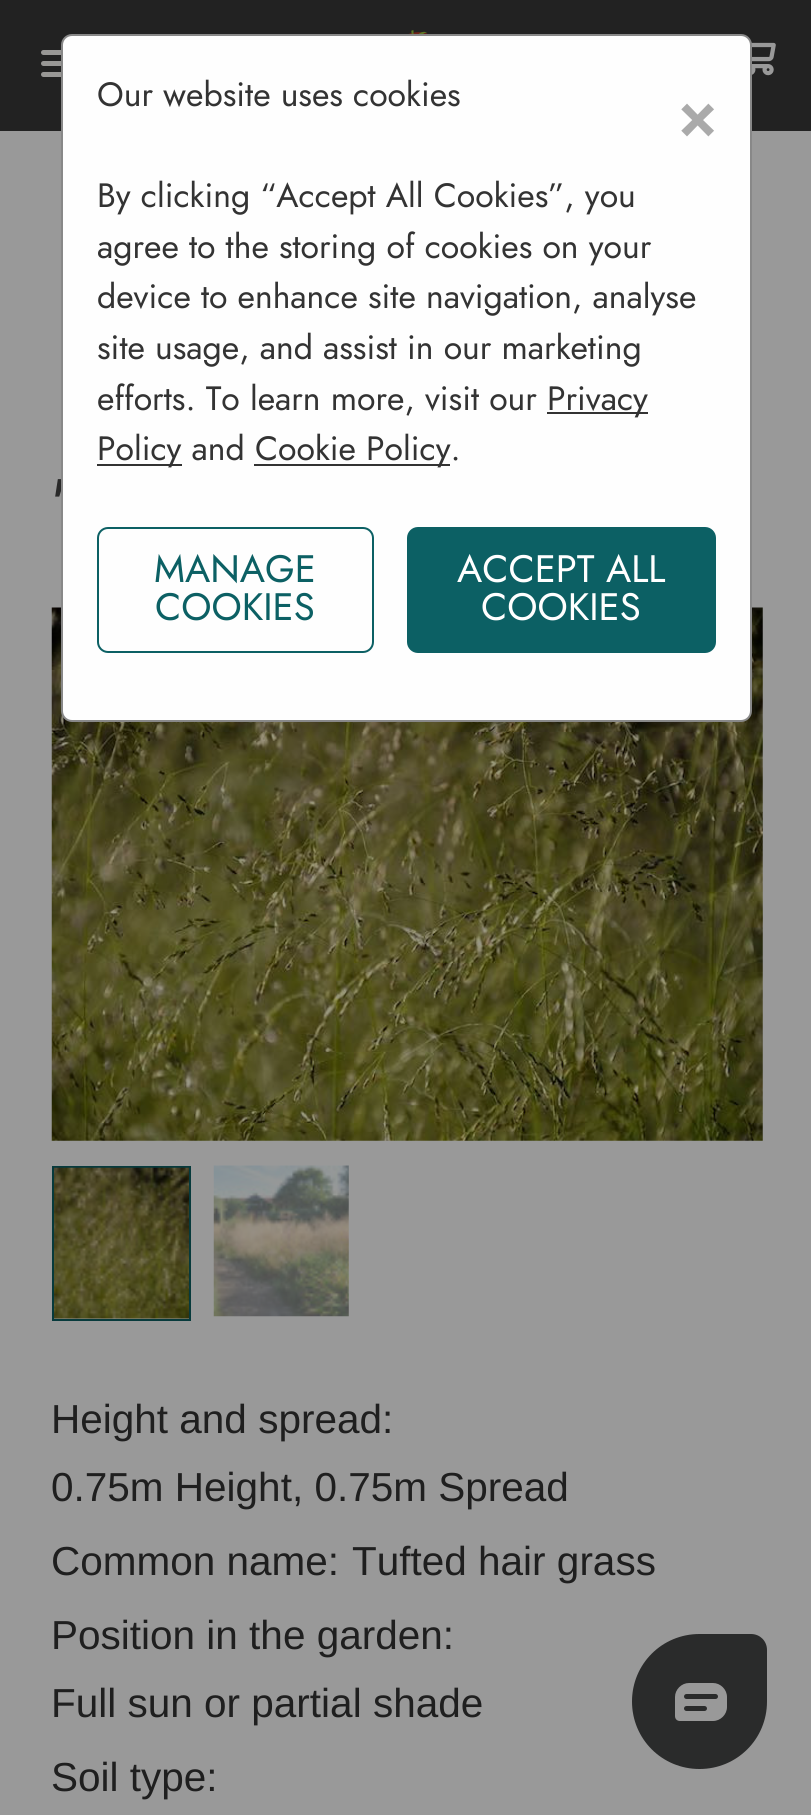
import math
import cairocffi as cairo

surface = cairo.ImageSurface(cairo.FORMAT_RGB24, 811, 1815)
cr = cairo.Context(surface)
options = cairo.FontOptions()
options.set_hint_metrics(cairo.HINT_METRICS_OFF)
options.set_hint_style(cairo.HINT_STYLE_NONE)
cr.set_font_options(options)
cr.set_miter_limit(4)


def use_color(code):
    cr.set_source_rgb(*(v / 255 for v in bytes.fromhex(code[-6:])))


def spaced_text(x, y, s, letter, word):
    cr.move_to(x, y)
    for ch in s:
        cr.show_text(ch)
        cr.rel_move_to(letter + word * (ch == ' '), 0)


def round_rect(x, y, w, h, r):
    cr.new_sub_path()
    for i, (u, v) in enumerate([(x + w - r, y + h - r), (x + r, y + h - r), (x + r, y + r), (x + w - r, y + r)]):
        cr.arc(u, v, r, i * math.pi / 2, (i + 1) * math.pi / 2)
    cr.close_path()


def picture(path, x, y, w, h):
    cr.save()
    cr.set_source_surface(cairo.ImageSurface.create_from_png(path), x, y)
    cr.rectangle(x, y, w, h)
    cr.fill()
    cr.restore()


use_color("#999999")
cr.paint()
use_color("#222222")
cr.rectangle(0, 0, 811, 131)
cr.fill()
picture("img1.png", 408, 30, 20, 4)
use_color("#999896")
round_rect(41, 61, 45, 5, 2.5)
cr.fill()
round_rect(41, 50, 45, 5, 2.5)
cr.fill()
round_rect(41, 72, 45, 5, 2.5)
cr.fill()
picture("img2.png", 751, 42, 25, 34)
cr.select_font_face("Jost Medium")
cr.set_font_size(57)
use_color("#292929")
spaced_text(51, 519, "'", 1, 0)
picture("img3.png", 51, 607, 712, 534)
use_color("#fefefe")
round_rect(62, 35, 689, 686, 10)
cr.fill_preserve()
use_color("#888888")
cr.stroke()
cr.select_font_face("Jost")
cr.set_font_size(33.75)
use_color("#333333")
cr.move_to(97, 106)
cr.show_text("Our website uses cookies")
cr.select_font_face("Jost", cairo.FONT_SLANT_NORMAL, cairo.FONT_WEIGHT_BOLD)
cr.set_font_size(63)
use_color("#aaaaaa")
cr.move_to(678, 137)
cr.show_text("×")
cr.select_font_face("Jost")
cr.set_font_size(33.75)
use_color("#333333")
cr.move_to(97, 207)
cr.show_text("By clicking “Accept All Cookies”, you")
cr.move_to(97, 258)
cr.show_text("agree to the storing of cookies on your")
cr.move_to(97, 308)
cr.show_text("device to enhance site navigation, analyse")
cr.move_to(97, 359)
cr.show_text("site usage, and assist in our marketing")
cr.move_to(97, 410)
cr.show_text("efforts. To learn more, visit our")
cr.rectangle(547, 412, 101, 2)
cr.fill()
cr.move_to(547, 410)
cr.show_text("Privacy")
cr.rectangle(97, 464, 85, 2)
cr.fill()
cr.move_to(97, 460)
cr.show_text("Policy and")
cr.rectangle(254, 464, 196, 2)
cr.fill()
cr.move_to(255, 460)
cr.show_text("Cookie Policy.")
round_rect(98, 528, 275, 124, 10)
use_color("#0c6064")
cr.stroke()
cr.set_font_size(38.25)
cr.move_to(154, 582)
cr.show_text("MANAGE")
cr.move_to(155, 620)
cr.show_text("COOKIES")
round_rect(408, 528, 307, 124, 10)
cr.fill_preserve()
cr.stroke()
use_color("#ffffff")
cr.move_to(457, 582)
cr.show_text("ACCEPT ALL")
cr.move_to(481, 620)
cr.show_text("COOKIES")
cr.rectangle(53, 1167, 137, 153)
use_color("#073a3c")
cr.stroke()
picture("img4.png", 54, 1167, 135, 152)
picture("img5.png", 213, 1165, 136, 152)
cr.select_font_face("Liberation Sans")
cr.set_font_size(40.5)
use_color("#1f1f1f")
cr.move_to(51, 1433)
cr.show_text("Height and spread:")
cr.move_to(51, 1501)
cr.show_text("0.75m Height, 0.75m Spread")
cr.move_to(51, 1575)
cr.show_text("Common name:")
cr.move_to(352, 1575)
cr.show_text("Tufted hair grass")
cr.move_to(51, 1649)
cr.show_text("Position in the garden:")
cr.move_to(51, 1717)
cr.show_text("Full sun or partial shade")
cr.move_to(51, 1791)
cr.show_text("Soil type:")
use_color("#2a2b2b")
cr.new_path()
cr.move_to(699.5, 1634)
cr.line_to(751, 1634)
cr.curve_to(760, 1634, 767, 1641, 767, 1650)
cr.line_to(767, 1701.5)
cr.curve_to(767, 1739, 737, 1769, 699.5, 1769)
cr.curve_to(662, 1769, 632, 1739, 632, 1701.5)
cr.curve_to(632, 1664, 662, 1634, 699.5, 1634)
cr.close_path()
cr.fill()
use_color("#999999")
cr.new_path()
cr.move_to(689, 1683)
cr.line_to(713, 1683)
cr.curve_to(720.5, 1683, 727, 1689.5, 727, 1697)
cr.line_to(727, 1707)
cr.curve_to(727, 1714.5, 720.5, 1721, 713, 1721)
cr.line_to(680, 1721)
cr.curve_to(677, 1721, 675, 1719, 675, 1716)
cr.line_to(675, 1697)
cr.curve_to(675, 1689.5, 681.5, 1683, 689, 1683)
cr.close_path()
cr.fill()
use_color("#2a2b2b")
round_rect(684, 1694, 34, 5, 2.5)
cr.fill()
round_rect(684, 1706, 23, 5, 2.5)
cr.fill()
surface.write_to_png("result.png")
